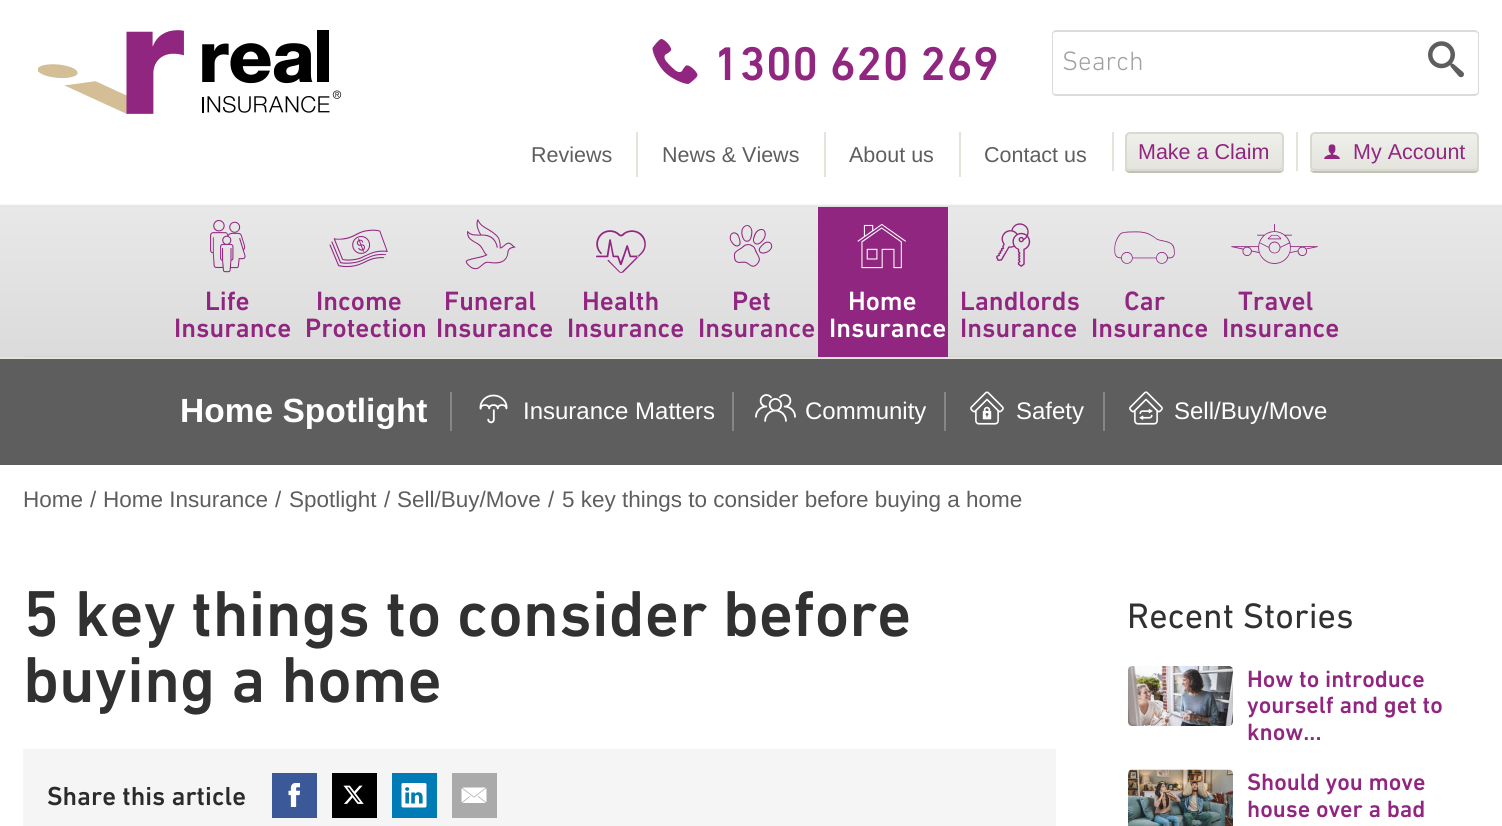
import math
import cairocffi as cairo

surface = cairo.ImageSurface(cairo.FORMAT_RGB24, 1502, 826)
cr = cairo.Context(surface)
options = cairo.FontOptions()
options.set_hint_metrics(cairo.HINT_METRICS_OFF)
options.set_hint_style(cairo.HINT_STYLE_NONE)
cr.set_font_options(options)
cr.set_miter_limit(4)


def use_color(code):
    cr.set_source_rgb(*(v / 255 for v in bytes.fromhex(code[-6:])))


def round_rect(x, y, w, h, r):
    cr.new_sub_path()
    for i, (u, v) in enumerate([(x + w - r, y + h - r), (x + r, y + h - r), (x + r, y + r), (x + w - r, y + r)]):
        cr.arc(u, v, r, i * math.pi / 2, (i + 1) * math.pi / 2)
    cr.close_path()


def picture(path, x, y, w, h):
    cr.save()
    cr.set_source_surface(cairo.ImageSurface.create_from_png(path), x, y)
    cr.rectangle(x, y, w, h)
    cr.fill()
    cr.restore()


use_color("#ffffff")
cr.paint()
gradient = cairo.LinearGradient(752, 357, 752, 0)
gradient.add_color_stop_rgba(0, 0.808, 0.808, 0.812, 1)
gradient.add_color_stop_rgba(0, 0.859, 0.859, 0.863, 1)
gradient.add_color_stop_rgba(0.42, 0.91, 0.91, 0.914, 1)
gradient.add_color_stop_rgba(0.42, 0.859, 0.859, 0.863, 1)
gradient.add_color_stop_rgba(0.43, 1, 1, 1, 1)
cr.set_source(gradient)
cr.rectangle(0, 204, 1502, 153)
cr.fill()
use_color("#e4e4dd")
cr.rectangle(0, 357, 1502, 2)
cr.fill()
picture("img1.png", 38, 30, 303, 84)
picture("img2.png", 652, 39, 46, 45)
cr.select_font_face("DIN Next Medium")
cr.set_font_size(48)
use_color("#912680")
cr.move_to(713, 80)
cr.show_text("1300 620 269")
use_color("#dbdbdc")
cr.set_fill_rule(cairo.FILL_RULE_EVEN_ODD)
cr.new_path()
cr.move_to(1056, 30)
cr.line_to(1414, 30)
cr.line_to(1414, 96)
cr.line_to(1056, 96)
cr.curve_to(1054, 96, 1052, 94, 1052, 92)
cr.line_to(1052, 34)
cr.curve_to(1052, 32, 1054, 30, 1056, 30)
cr.close_path()
cr.move_to(1056, 32)
cr.line_to(1414, 32)
cr.line_to(1414, 94)
cr.line_to(1056, 94)
cr.curve_to(1054, 94, 1053, 93, 1053, 92)
cr.line_to(1053, 34)
cr.curve_to(1053, 33, 1054, 32, 1056, 32)
cr.close_path()
cr.fill()
cr.select_font_face("DIN Next Light")
cr.set_font_size(27)
use_color("#a1a1a1")
cr.move_to(1062, 70)
cr.show_text("Search")
use_color("#dbdbdc")
cr.new_path()
cr.move_to(1414, 30)
cr.line_to(1474, 30)
cr.curve_to(1477, 30, 1479, 32, 1479, 34)
cr.line_to(1479, 92)
cr.curve_to(1479, 94, 1477, 96, 1474, 96)
cr.line_to(1414, 96)
cr.close_path()
cr.move_to(1414, 32)
cr.line_to(1474, 32)
cr.curve_to(1476, 32, 1478, 33, 1478, 34)
cr.line_to(1478, 92)
cr.curve_to(1478, 93, 1476, 94, 1474, 94)
cr.line_to(1414, 94)
cr.close_path()
cr.fill()
picture("img3.png", 1428, 41, 36, 37)
gradient = cairo.LinearGradient(752, 357, 752, 207)
gradient.add_color_stop_rgba(0, 0.808, 0.808, 0.812, 1)
gradient.add_color_stop_rgba(0.01, 0.859, 0.859, 0.863, 1)
gradient.add_color_stop_rgba(1, 0.91, 0.91, 0.914, 1)
cr.set_source(gradient)
cr.rectangle(24, 356, 1455, 1)
cr.fill()
picture("img4.png", 210, 220, 36, 53)
cr.select_font_face("DIN Next Medium")
use_color("#912680")
cr.move_to(205, 310)
cr.show_text("Life")
cr.move_to(174, 337)
cr.show_text("Insurance")
picture("img5.png", 329, 229, 59, 39)
cr.move_to(316, 310)
cr.show_text("Income")
cr.move_to(305, 337)
cr.show_text("Protection")
picture("img6.png", 465, 219, 51, 51)
cr.move_to(444, 310)
cr.show_text("Funeral")
cr.move_to(436, 337)
cr.show_text("Insurance")
picture("img7.png", 596, 230, 50, 43)
cr.move_to(582, 310)
cr.show_text("Health")
cr.move_to(567, 337)
cr.show_text("Insurance")
picture("img8.png", 729, 225, 44, 42)
cr.move_to(732, 310)
cr.show_text("Pet")
cr.move_to(698, 337)
cr.show_text("Insurance")
cr.rectangle(818, 207, 130, 150)
cr.fill()
picture("img9.png", 857, 223, 49, 46)
use_color("#ffffff")
cr.move_to(848, 310)
cr.show_text("Home")
cr.move_to(829, 337)
cr.show_text("Insurance")
picture("img10.png", 996, 223, 35, 44)
use_color("#912680")
cr.move_to(960, 310)
cr.show_text("Landlords")
cr.move_to(960, 337)
cr.show_text("Insurance")
picture("img11.png", 1114, 231, 61, 33)
cr.move_to(1124, 310)
cr.show_text("Car")
cr.move_to(1091, 337)
cr.show_text("Insurance")
picture("img12.png", 1231, 223, 87, 41)
cr.move_to(1238, 310)
cr.show_text("Travel")
cr.move_to(1222, 337)
cr.show_text("Insurance")
cr.select_font_face("Liberation Sans")
cr.set_font_size(21.5)
use_color("#5e5e5e")
cr.move_to(531, 162)
cr.show_text("Reviews")
use_color("#e4e4dd")
cr.rectangle(636, 132, 2, 45)
cr.fill()
use_color("#5e5e5e")
cr.move_to(662, 162)
cr.show_text("News & Views")
use_color("#e4e4dd")
cr.rectangle(824, 132, 2, 45)
cr.fill()
use_color("#5e5e5e")
cr.move_to(849, 162)
cr.show_text("About us")
use_color("#e4e4dd")
cr.rectangle(959, 132, 2, 45)
cr.fill()
use_color("#5e5e5e")
cr.move_to(984, 162)
cr.show_text("Contact us")
use_color("#e4e4dd")
cr.rectangle(1112, 132, 2, 39)
cr.fill()
use_color("#c2c2b2")
cr.set_fill_rule(cairo.FILL_RULE_WINDING)
cr.new_path()
cr.move_to(1125, 166)
cr.line_to(1125, 168)
cr.curve_to(1125, 171, 1127, 173, 1130, 173)
cr.line_to(1279, 173)
cr.curve_to(1282, 173, 1284, 171, 1284, 168)
cr.line_to(1284, 166)
cr.curve_to(1284, 169, 1282, 171, 1280, 171)
cr.line_to(1130, 171)
cr.curve_to(1127, 171, 1125, 169, 1125, 166)
cr.close_path()
cr.fill()
cr.save()
round_rect(1125, 132, 159, 39, 5)
cr.clip()
gradient = cairo.LinearGradient(1205, 134, 1205, 170)
gradient.add_color_stop_rgba(0, 0.937, 0.937, 0.922, 1)
gradient.add_color_stop_rgba(1, 0.894, 0.894, 0.867, 1)
cr.set_source(gradient)
cr.rectangle(1125, 134, 159, 36)
cr.fill()
cr.restore()
round_rect(1126, 133, 157, 37, 4)
use_color("#d9d9cf")
cr.stroke()
use_color("#912680")
cr.move_to(1138, 159)
cr.show_text("Make a Claim")
use_color("#e4e4dd")
cr.rectangle(1296, 132, 2, 39)
cr.fill()
use_color("#c2c2b2")
cr.new_path()
cr.move_to(1310, 169)
cr.curve_to(1310, 171, 1312, 173, 1315, 173)
cr.line_to(1474, 173)
cr.curve_to(1477, 173, 1479, 171, 1479, 168)
cr.line_to(1479, 166)
cr.curve_to(1479, 169, 1477, 171, 1474, 171)
cr.line_to(1314, 171)
cr.curve_to(1312, 171, 1311, 170, 1310, 169)
cr.close_path()
cr.fill()
cr.save()
round_rect(1310, 132, 169, 39, 5)
cr.clip()
gradient = cairo.LinearGradient(1394, 134, 1394, 170)
gradient.add_color_stop_rgba(0, 0.937, 0.937, 0.922, 1)
gradient.add_color_stop_rgba(1, 0.894, 0.894, 0.867, 1)
cr.set_source(gradient)
cr.rectangle(1310, 134, 169, 36)
cr.fill()
cr.restore()
round_rect(1311, 133, 167, 37, 4)
use_color("#d9d9cf")
cr.stroke()
picture("img13.png", 1324, 144, 16, 15)
use_color("#912680")
cr.move_to(1353, 159)
cr.show_text("My Account")
use_color("#5e5e5e")
cr.rectangle(0, 359, 1502, 106)
cr.fill()
cr.select_font_face("Liberation Sans", cairo.FONT_SLANT_NORMAL, cairo.FONT_WEIGHT_BOLD)
cr.set_font_size(33.5)
use_color("#ffffff")
cr.move_to(180, 422)
cr.show_text("Home Spotlight")
use_color("#868686")
cr.rectangle(450, 392, 2, 39)
cr.fill()
picture("img14.png", 479, 394, 29, 30)
cr.select_font_face("Liberation Sans")
cr.set_font_size(24)
use_color("#ffffff")
cr.move_to(523, 419)
cr.show_text("Insurance Matters")
use_color("#868686")
cr.rectangle(732, 392, 2, 39)
cr.fill()
picture("img15.png", 755, 394, 41, 28)
use_color("#ffffff")
cr.move_to(805, 419)
cr.show_text("Community")
use_color("#868686")
cr.rectangle(944, 392, 2, 39)
cr.fill()
picture("img16.png", 970, 391, 34, 34)
use_color("#ffffff")
cr.move_to(1016, 419)
cr.show_text("Safety")
use_color("#868686")
cr.rectangle(1103, 392, 2, 39)
cr.fill()
picture("img17.png", 1129, 391, 34, 34)
use_color("#ffffff")
cr.move_to(1174, 419)
cr.show_text("Sell/Buy/Move")
cr.set_font_size(22.5)
use_color("#5e5e5e")
cr.move_to(23, 507)
cr.show_text("Home")
cr.move_to(90, 507)
cr.show_text("/")
cr.move_to(103, 507)
cr.show_text("Home Insurance")
cr.move_to(275, 507)
cr.show_text("/")
cr.move_to(289, 507)
cr.show_text("Spotlight")
cr.move_to(384, 507)
cr.show_text("/")
cr.move_to(397, 507)
cr.show_text("Sell/Buy/Move")
cr.move_to(548, 507)
cr.show_text("/")
cr.move_to(562, 507)
cr.show_text("5 key things to consider before buying a home")
cr.select_font_face("DIN Next Medium")
cr.set_font_size(66)
use_color("#313131")
cr.move_to(23, 636)
cr.show_text("5 key things to consider before")
cr.move_to(23, 702)
cr.show_text("buying a home")
use_color("#f5f5f5")
cr.rectangle(23, 749, 1033, 77)
cr.fill()
cr.set_font_size(26.5)
use_color("#2b2b2b")
cr.move_to(47, 805)
cr.show_text("Share this article")
use_color("#3b5998")
cr.rectangle(272, 773, 45, 45)
cr.fill()
picture("img18.png", 288, 783, 12, 24)
use_color("#000000")
cr.rectangle(332, 773, 45, 45)
cr.fill()
picture("img19.png", 343, 785, 21, 19)
use_color("#007bb6")
cr.rectangle(392, 773, 45, 45)
cr.fill()
picture("img20.png", 401, 783, 26, 25)
use_color("#aaaaaa")
cr.rectangle(452, 773, 45, 45)
cr.fill()
picture("img21.png", 461, 787, 26, 16)
cr.select_font_face("DIN Next")
cr.set_font_size(36)
use_color("#313131")
cr.move_to(1127, 628)
cr.show_text("Recent Stories")
picture("img22.png", 1128, 666, 105, 60)
cr.select_font_face("DIN Next Medium")
cr.set_font_size(24)
use_color("#912680")
cr.move_to(1247, 687)
cr.show_text("How to introduce")
cr.move_to(1247, 713)
cr.show_text("yourself and get to")
cr.move_to(1247, 740)
cr.show_text("know...")
picture("img23.png", 1128, 769, 105, 57)
cr.move_to(1247, 790)
cr.show_text("Should you move")
cr.move_to(1247, 817)
cr.show_text("house over a bad")
surface.write_to_png("result.png")
